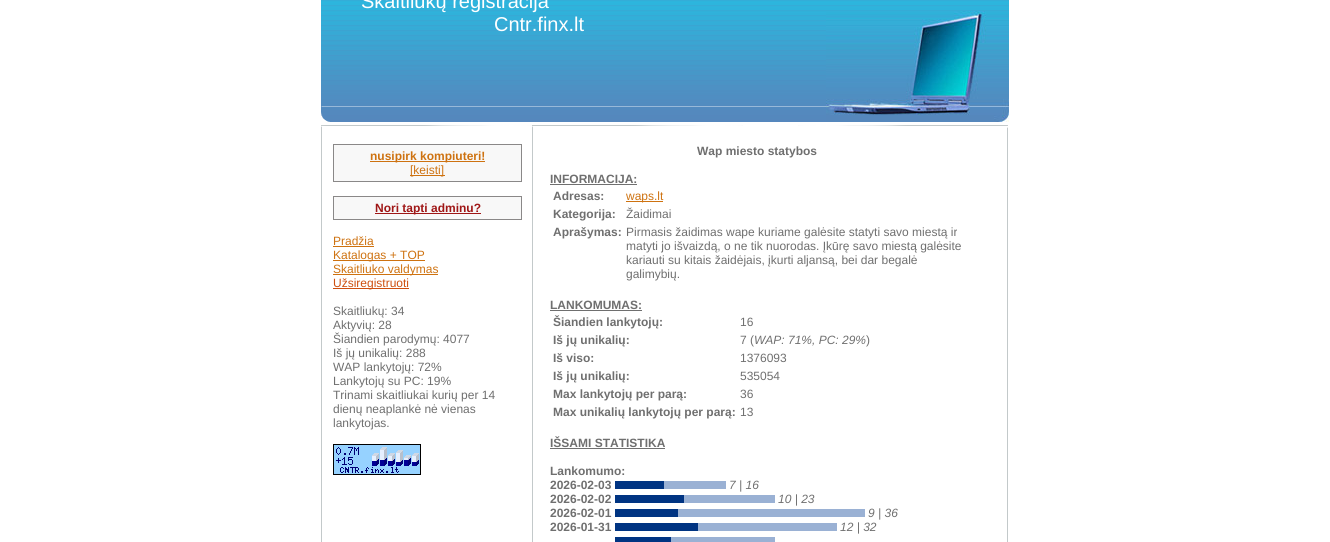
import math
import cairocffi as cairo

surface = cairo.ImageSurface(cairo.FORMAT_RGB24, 1330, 542)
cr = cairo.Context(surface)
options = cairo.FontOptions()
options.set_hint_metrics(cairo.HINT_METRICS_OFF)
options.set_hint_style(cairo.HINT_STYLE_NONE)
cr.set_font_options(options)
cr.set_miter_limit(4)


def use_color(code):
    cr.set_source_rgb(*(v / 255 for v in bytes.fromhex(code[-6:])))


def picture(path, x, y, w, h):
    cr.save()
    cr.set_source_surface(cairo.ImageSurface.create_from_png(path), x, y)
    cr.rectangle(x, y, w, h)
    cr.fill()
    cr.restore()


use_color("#ffffff")
cr.paint()
picture("img1.png", 321, 0, 688, 122)
picture("img2.png", 826, 11, 183, 111)
picture("img3.png", 321, 106, 9, 16)
cr.select_font_face("Liberation Sans")
cr.set_font_size(20)
use_color("#ffffff")
cr.move_to(361, 8)
cr.show_text("Skaitliukų registracija")
cr.move_to(494, 31)
cr.show_text("Cntr.finx.lt")
picture("img4.png", 321, 128, 687, 414)
picture("img5.png", 321, 125, 687, 3)
use_color("#f8f8f8")
cr.rectangle(333.5, 144.5, 188, 37)
cr.fill_preserve()
use_color("#8a8888")
cr.set_line_width(1)
cr.stroke()
use_color("#ce7210")
cr.rectangle(370, 161, 115, 1)
cr.fill()
cr.select_font_face("Liberation Sans", cairo.FONT_SLANT_NORMAL, cairo.FONT_WEIGHT_BOLD)
cr.set_font_size(12)
cr.move_to(370, 160)
cr.show_text("nusipirk kompiuteri!")
cr.rectangle(410, 175, 35, 1)
cr.fill()
cr.select_font_face("Liberation Sans")
cr.move_to(410, 174)
cr.show_text("[keisti]")
use_color("#f8f8f8")
cr.rectangle(333.5, 196.5, 188, 23)
cr.fill_preserve()
use_color("#8a8888")
cr.stroke()
use_color("#9f1616")
cr.rectangle(375, 213, 106, 1)
cr.fill()
cr.select_font_face("Liberation Sans", cairo.FONT_SLANT_NORMAL, cairo.FONT_WEIGHT_BOLD)
cr.move_to(375, 212)
cr.show_text("Nori tapti adminu?")
cr.select_font_face("Liberation Sans")
use_color("#ce7210")
cr.move_to(333, 245)
cr.show_text("Pradžia")
cr.rectangle(333, 246, 41, 1)
cr.fill()
cr.rectangle(333, 260, 92, 1)
cr.fill()
cr.move_to(333, 259)
cr.show_text("Katalogas + TOP")
cr.rectangle(333, 274, 105, 1)
cr.fill()
cr.move_to(333, 273)
cr.show_text("Skaitliuko valdymas")
use_color("#ce4f10")
cr.rectangle(333, 288, 76, 1)
cr.fill()
cr.move_to(333, 287)
cr.show_text("Užsiregistruoti")
use_color("#6f6f6f")
cr.move_to(333, 315)
cr.show_text("Skaitliukų: 34")
cr.move_to(333, 329)
cr.show_text("Aktyvių: 28")
cr.move_to(333, 343)
cr.show_text("Šiandien parodymų: 4077")
cr.move_to(333, 357)
cr.show_text("Iš jų unikalių: 288")
cr.move_to(333, 371)
cr.show_text("WAP lankytojų: 72%")
cr.move_to(333, 385)
cr.show_text("Lankytojų su PC: 19%")
cr.move_to(333, 399)
cr.show_text("Trinami skaitliukai kurių per 14")
cr.move_to(333, 413)
cr.show_text("dienų neaplankė nė vienas")
cr.move_to(333, 427)
cr.show_text("lankytojas.")
picture("img6.png", 333, 444, 88, 31)
cr.select_font_face("Liberation Sans", cairo.FONT_SLANT_NORMAL, cairo.FONT_WEIGHT_BOLD)
cr.move_to(697, 155)
cr.show_text("Wap miesto statybos")
cr.move_to(550, 183)
cr.show_text("INFORMACIJA:")
cr.rectangle(550, 184, 87, 1)
cr.fill()
cr.move_to(553, 200)
cr.show_text("Adresas:")
use_color("#ce7210")
cr.rectangle(626, 201, 37, 1)
cr.fill()
cr.select_font_face("Liberation Sans")
cr.move_to(626, 200)
cr.show_text("waps.lt")
cr.select_font_face("Liberation Sans", cairo.FONT_SLANT_NORMAL, cairo.FONT_WEIGHT_BOLD)
use_color("#6f6f6f")
cr.move_to(553, 218)
cr.show_text("Kategorija:")
cr.select_font_face("Liberation Sans")
cr.move_to(626, 218)
cr.show_text("Žaidimai")
cr.select_font_face("Liberation Sans", cairo.FONT_SLANT_NORMAL, cairo.FONT_WEIGHT_BOLD)
cr.move_to(553, 236)
cr.show_text("Aprašymas:")
cr.select_font_face("Liberation Sans")
cr.move_to(626, 236)
cr.show_text("Pirmasis žaidimas wape kuriame galėsite statyti savo miestą ir")
cr.move_to(626, 250)
cr.show_text("matyti jo išvaizdą, o ne tik nuorodas. Įkūrę savo miestą galėsite")
cr.move_to(626, 264)
cr.show_text("kariauti su kitais žaidėjais, įkurti aljansą, bei dar begalė")
cr.move_to(626, 278)
cr.show_text("galimybių.")
cr.select_font_face("Liberation Sans", cairo.FONT_SLANT_NORMAL, cairo.FONT_WEIGHT_BOLD)
cr.move_to(550, 309)
cr.show_text("LANKOMUMAS:")
cr.rectangle(550, 310, 92, 1)
cr.fill()
cr.move_to(553, 326)
cr.show_text("Šiandien lankytojų:")
cr.select_font_face("Liberation Sans")
cr.move_to(740, 326)
cr.show_text("16")
cr.select_font_face("Liberation Sans", cairo.FONT_SLANT_NORMAL, cairo.FONT_WEIGHT_BOLD)
cr.move_to(553, 344)
cr.show_text("Iš jų unikalių:")
cr.select_font_face("Liberation Sans")
cr.move_to(740, 344)
cr.show_text("7 (")
cr.select_font_face("Liberation Sans", cairo.FONT_SLANT_ITALIC)
cr.move_to(754, 344)
cr.show_text("WAP: 71%, PC: 29%")
cr.select_font_face("Liberation Sans")
cr.move_to(866, 344)
cr.show_text(")")
cr.select_font_face("Liberation Sans", cairo.FONT_SLANT_NORMAL, cairo.FONT_WEIGHT_BOLD)
cr.move_to(553, 362)
cr.show_text("Iš viso:")
cr.select_font_face("Liberation Sans")
cr.move_to(740, 362)
cr.show_text("1376093")
cr.select_font_face("Liberation Sans", cairo.FONT_SLANT_NORMAL, cairo.FONT_WEIGHT_BOLD)
cr.move_to(553, 380)
cr.show_text("Iš jų unikalių:")
cr.select_font_face("Liberation Sans")
cr.move_to(740, 380)
cr.show_text("535054")
cr.select_font_face("Liberation Sans", cairo.FONT_SLANT_NORMAL, cairo.FONT_WEIGHT_BOLD)
cr.move_to(553, 398)
cr.show_text("Max lankytojų per parą:")
cr.select_font_face("Liberation Sans")
cr.move_to(740, 398)
cr.show_text("36")
cr.select_font_face("Liberation Sans", cairo.FONT_SLANT_NORMAL, cairo.FONT_WEIGHT_BOLD)
cr.move_to(553, 416)
cr.show_text("Max unikalių lankytojų per parą:")
cr.select_font_face("Liberation Sans")
cr.move_to(740, 416)
cr.show_text("13")
cr.select_font_face("Liberation Sans", cairo.FONT_SLANT_NORMAL, cairo.FONT_WEIGHT_BOLD)
cr.move_to(550, 447)
cr.show_text("IŠSAMI STATISTIKA")
cr.rectangle(550, 448, 115, 1)
cr.fill()
cr.move_to(550, 475)
cr.show_text("Lankomumo:")
cr.move_to(550, 489)
cr.show_text("2026-02-03")
use_color("#9ab1d4")
cr.rectangle(664, 481, 62, 8)
cr.fill()
use_color("#003482")
cr.rectangle(615, 481, 49, 8)
cr.fill()
cr.select_font_face("Liberation Sans", cairo.FONT_SLANT_ITALIC)
use_color("#6f6f6f")
cr.move_to(729, 489)
cr.show_text("7 | 16")
cr.select_font_face("Liberation Sans", cairo.FONT_SLANT_NORMAL, cairo.FONT_WEIGHT_BOLD)
cr.move_to(550, 503)
cr.show_text("2026-02-02")
use_color("#9ab1d4")
cr.rectangle(684, 495, 91, 8)
cr.fill()
use_color("#003482")
cr.rectangle(615, 495, 69, 8)
cr.fill()
cr.select_font_face("Liberation Sans", cairo.FONT_SLANT_ITALIC)
use_color("#6f6f6f")
cr.move_to(778, 503)
cr.show_text("10 | 23")
cr.select_font_face("Liberation Sans", cairo.FONT_SLANT_NORMAL, cairo.FONT_WEIGHT_BOLD)
cr.move_to(550, 517)
cr.show_text("2026-02-01")
use_color("#9ab1d4")
cr.rectangle(678, 509, 187, 8)
cr.fill()
use_color("#003482")
cr.rectangle(615, 509, 63, 8)
cr.fill()
cr.select_font_face("Liberation Sans", cairo.FONT_SLANT_ITALIC)
use_color("#6f6f6f")
cr.move_to(868, 517)
cr.show_text("9 | 36")
cr.select_font_face("Liberation Sans", cairo.FONT_SLANT_NORMAL, cairo.FONT_WEIGHT_BOLD)
cr.move_to(550, 531)
cr.show_text("2026-01-31")
use_color("#9ab1d4")
cr.rectangle(698, 523, 139, 8)
cr.fill()
use_color("#003482")
cr.rectangle(615, 523, 83, 8)
cr.fill()
cr.select_font_face("Liberation Sans", cairo.FONT_SLANT_ITALIC)
use_color("#6f6f6f")
cr.move_to(840, 531)
cr.show_text("12 | 32")
use_color("#9ab1d4")
cr.rectangle(671, 537, 104, 5)
cr.fill()
use_color("#003482")
cr.rectangle(615, 537, 56, 5)
cr.fill()
surface.write_to_png("result.png")
